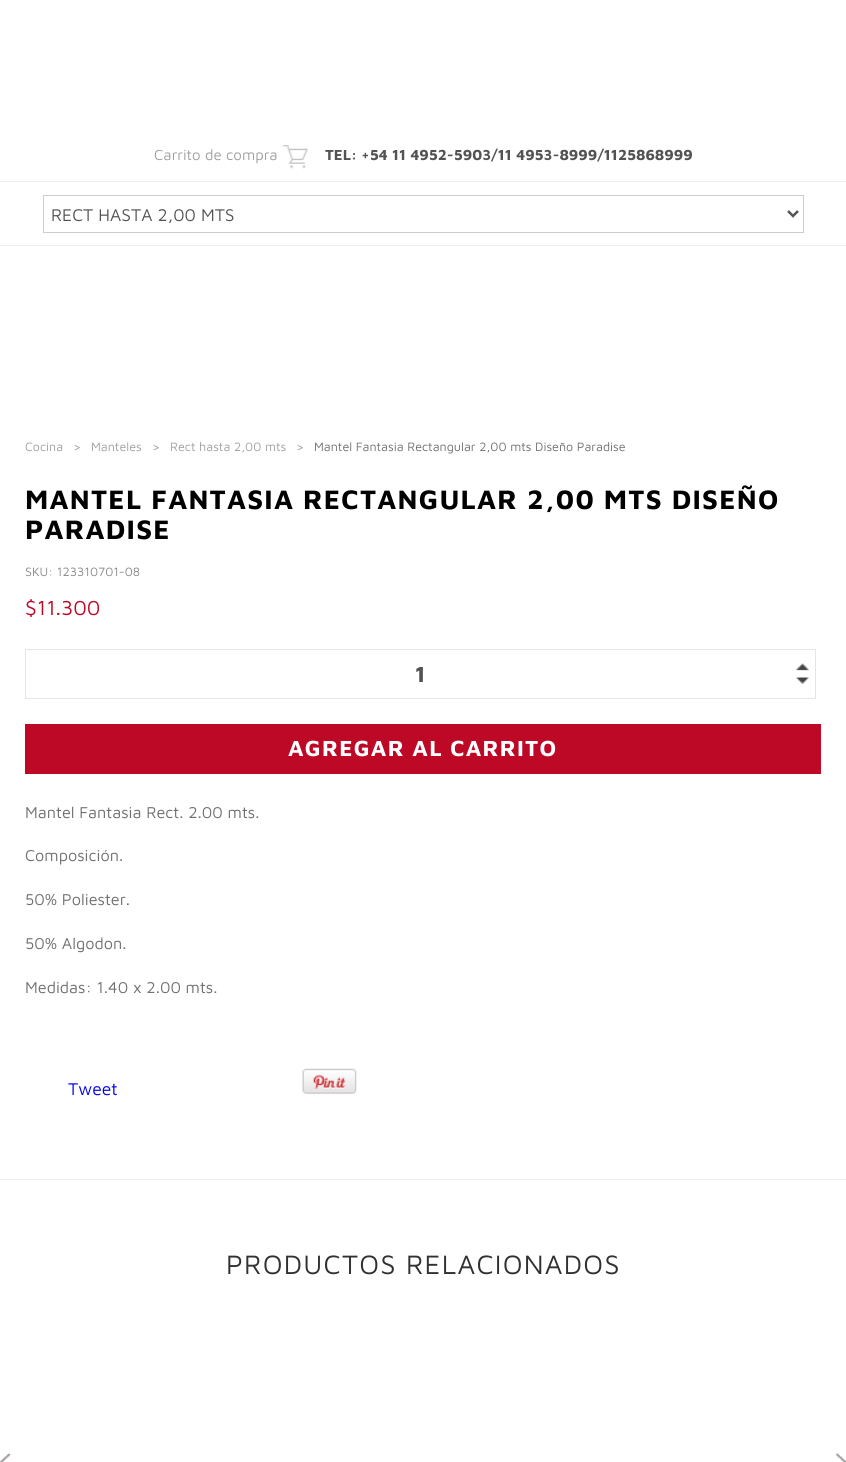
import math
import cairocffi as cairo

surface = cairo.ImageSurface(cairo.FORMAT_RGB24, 846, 1462)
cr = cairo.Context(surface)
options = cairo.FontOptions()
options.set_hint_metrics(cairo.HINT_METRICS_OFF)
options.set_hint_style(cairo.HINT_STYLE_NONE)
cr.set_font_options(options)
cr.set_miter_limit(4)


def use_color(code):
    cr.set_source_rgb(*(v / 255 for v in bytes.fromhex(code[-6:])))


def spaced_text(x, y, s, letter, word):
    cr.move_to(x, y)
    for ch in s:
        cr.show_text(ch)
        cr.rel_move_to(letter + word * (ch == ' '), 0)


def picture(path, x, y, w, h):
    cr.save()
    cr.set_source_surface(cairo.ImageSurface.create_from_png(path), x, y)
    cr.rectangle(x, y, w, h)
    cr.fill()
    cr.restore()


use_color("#ffffff")
cr.paint()
cr.select_font_face("Maven Pro")
cr.set_font_size(15)
use_color("#a0a0a0")
cr.move_to(154, 160)
cr.show_text("Carrito de compra")
picture("img1.png", 282, 145, 26, 24)
cr.select_font_face("Maven Pro", cairo.FONT_SLANT_NORMAL, cairo.FONT_WEIGHT_BOLD)
use_color("#535353")
cr.move_to(325, 160)
cr.show_text("TEL: +54 11 4952-5903/11 4953-8999/1125868999")
use_color("#eeeeee")
cr.rectangle(0, 181, 846, 1)
cr.fill()
cr.rectangle(0, 245, 846, 1)
cr.fill()
cr.rectangle(43.5, 195.5, 760, 37)
use_color("#cccccc")
cr.set_line_width(1)
cr.stroke()
cr.new_path()
cr.move_to(788, 211)
cr.line_to(793, 216)
cr.line_to(798, 211)
use_color("#555555")
cr.set_line_width(2.5)
cr.stroke()
cr.select_font_face("Maven Pro")
cr.set_font_size(17.5)
use_color("#535353")
cr.move_to(51, 221)
cr.show_text("RECT HASTA 2,00 MTS")
cr.set_font_size(12.5)
use_color("#a0a0a0")
cr.move_to(25, 451)
cr.show_text("Cocina")
cr.move_to(73, 451)
cr.show_text(">")
cr.move_to(91, 451)
cr.show_text("Manteles")
cr.move_to(152, 451)
cr.show_text(">")
cr.move_to(170, 451)
cr.show_text("Rect hasta 2,00 mts")
cr.move_to(296, 451)
cr.show_text(">")
use_color("#707070")
cr.move_to(314, 451)
cr.show_text("Mantel Fantasia Rectangular 2,00 mts Diseño Paradise")
cr.select_font_face("Maven Pro", cairo.FONT_SLANT_NORMAL, cairo.FONT_WEIGHT_BOLD)
cr.set_font_size(27.5)
use_color("#000000")
spaced_text(25, 509, "MANTEL FANTASIA RECTANGULAR 2,00 MTS DISEÑO", 1.25, 0)
spaced_text(25, 539, "PARADISE", 1.25, 0)
cr.select_font_face("Maven Pro")
cr.set_font_size(12.5)
use_color("#898989")
cr.move_to(25, 576)
cr.show_text("SKU: 123310701-08")
cr.set_font_size(21)
use_color("#bd0826")
cr.move_to(25, 615)
cr.show_text("$11.300")
cr.rectangle(25.5, 649.5, 790, 49)
use_color("#e5e5e5")
cr.set_line_width(1)
cr.stroke()
cr.select_font_face("Maven Pro", cairo.FONT_SLANT_NORMAL, cairo.FONT_WEIGHT_BOLD)
cr.set_font_size(22.5)
use_color("#535353")
cr.move_to(415, 682)
cr.show_text("1")
picture("img2.png", 796, 663, 13, 8)
picture("img3.png", 796, 677, 13, 7)
use_color("#bd0826")
cr.rectangle(25, 724, 796, 50)
cr.fill()
use_color("#ffffff")
spaced_text(288, 756, "AGREGAR AL CARRITO", 1.25, 0)
cr.select_font_face("Maven Pro")
cr.set_font_size(16.25)
use_color("#707070")
cr.move_to(25, 818)
cr.show_text("Mantel Fantasia Rect. 2.00 mts.")
cr.move_to(25, 861)
cr.show_text("Composición.")
cr.move_to(25, 905)
cr.show_text("50% Poliester.")
cr.move_to(25, 949)
cr.show_text("50% Algodon.")
cr.move_to(25, 993)
cr.show_text("Medidas: 1.40 x 2.00 mts.")
cr.set_font_size(17.5)
use_color("#0000ee")
cr.move_to(68, 1095)
cr.show_text("Tweet")
picture("img4.png", 302, 1068, 55, 26)
use_color("#eeeeee")
cr.rectangle(0, 1179, 846, 1)
cr.fill()
cr.set_font_size(27.5)
use_color("#313131")
spaced_text(226, 1274, "PRODUCTOS RELACIONADOS", 1.25, 0)
picture("img5.png", 0, 1453, 11, 9)
picture("img6.png", 836, 1453, 10, 9)
surface.write_to_png("result.png")
